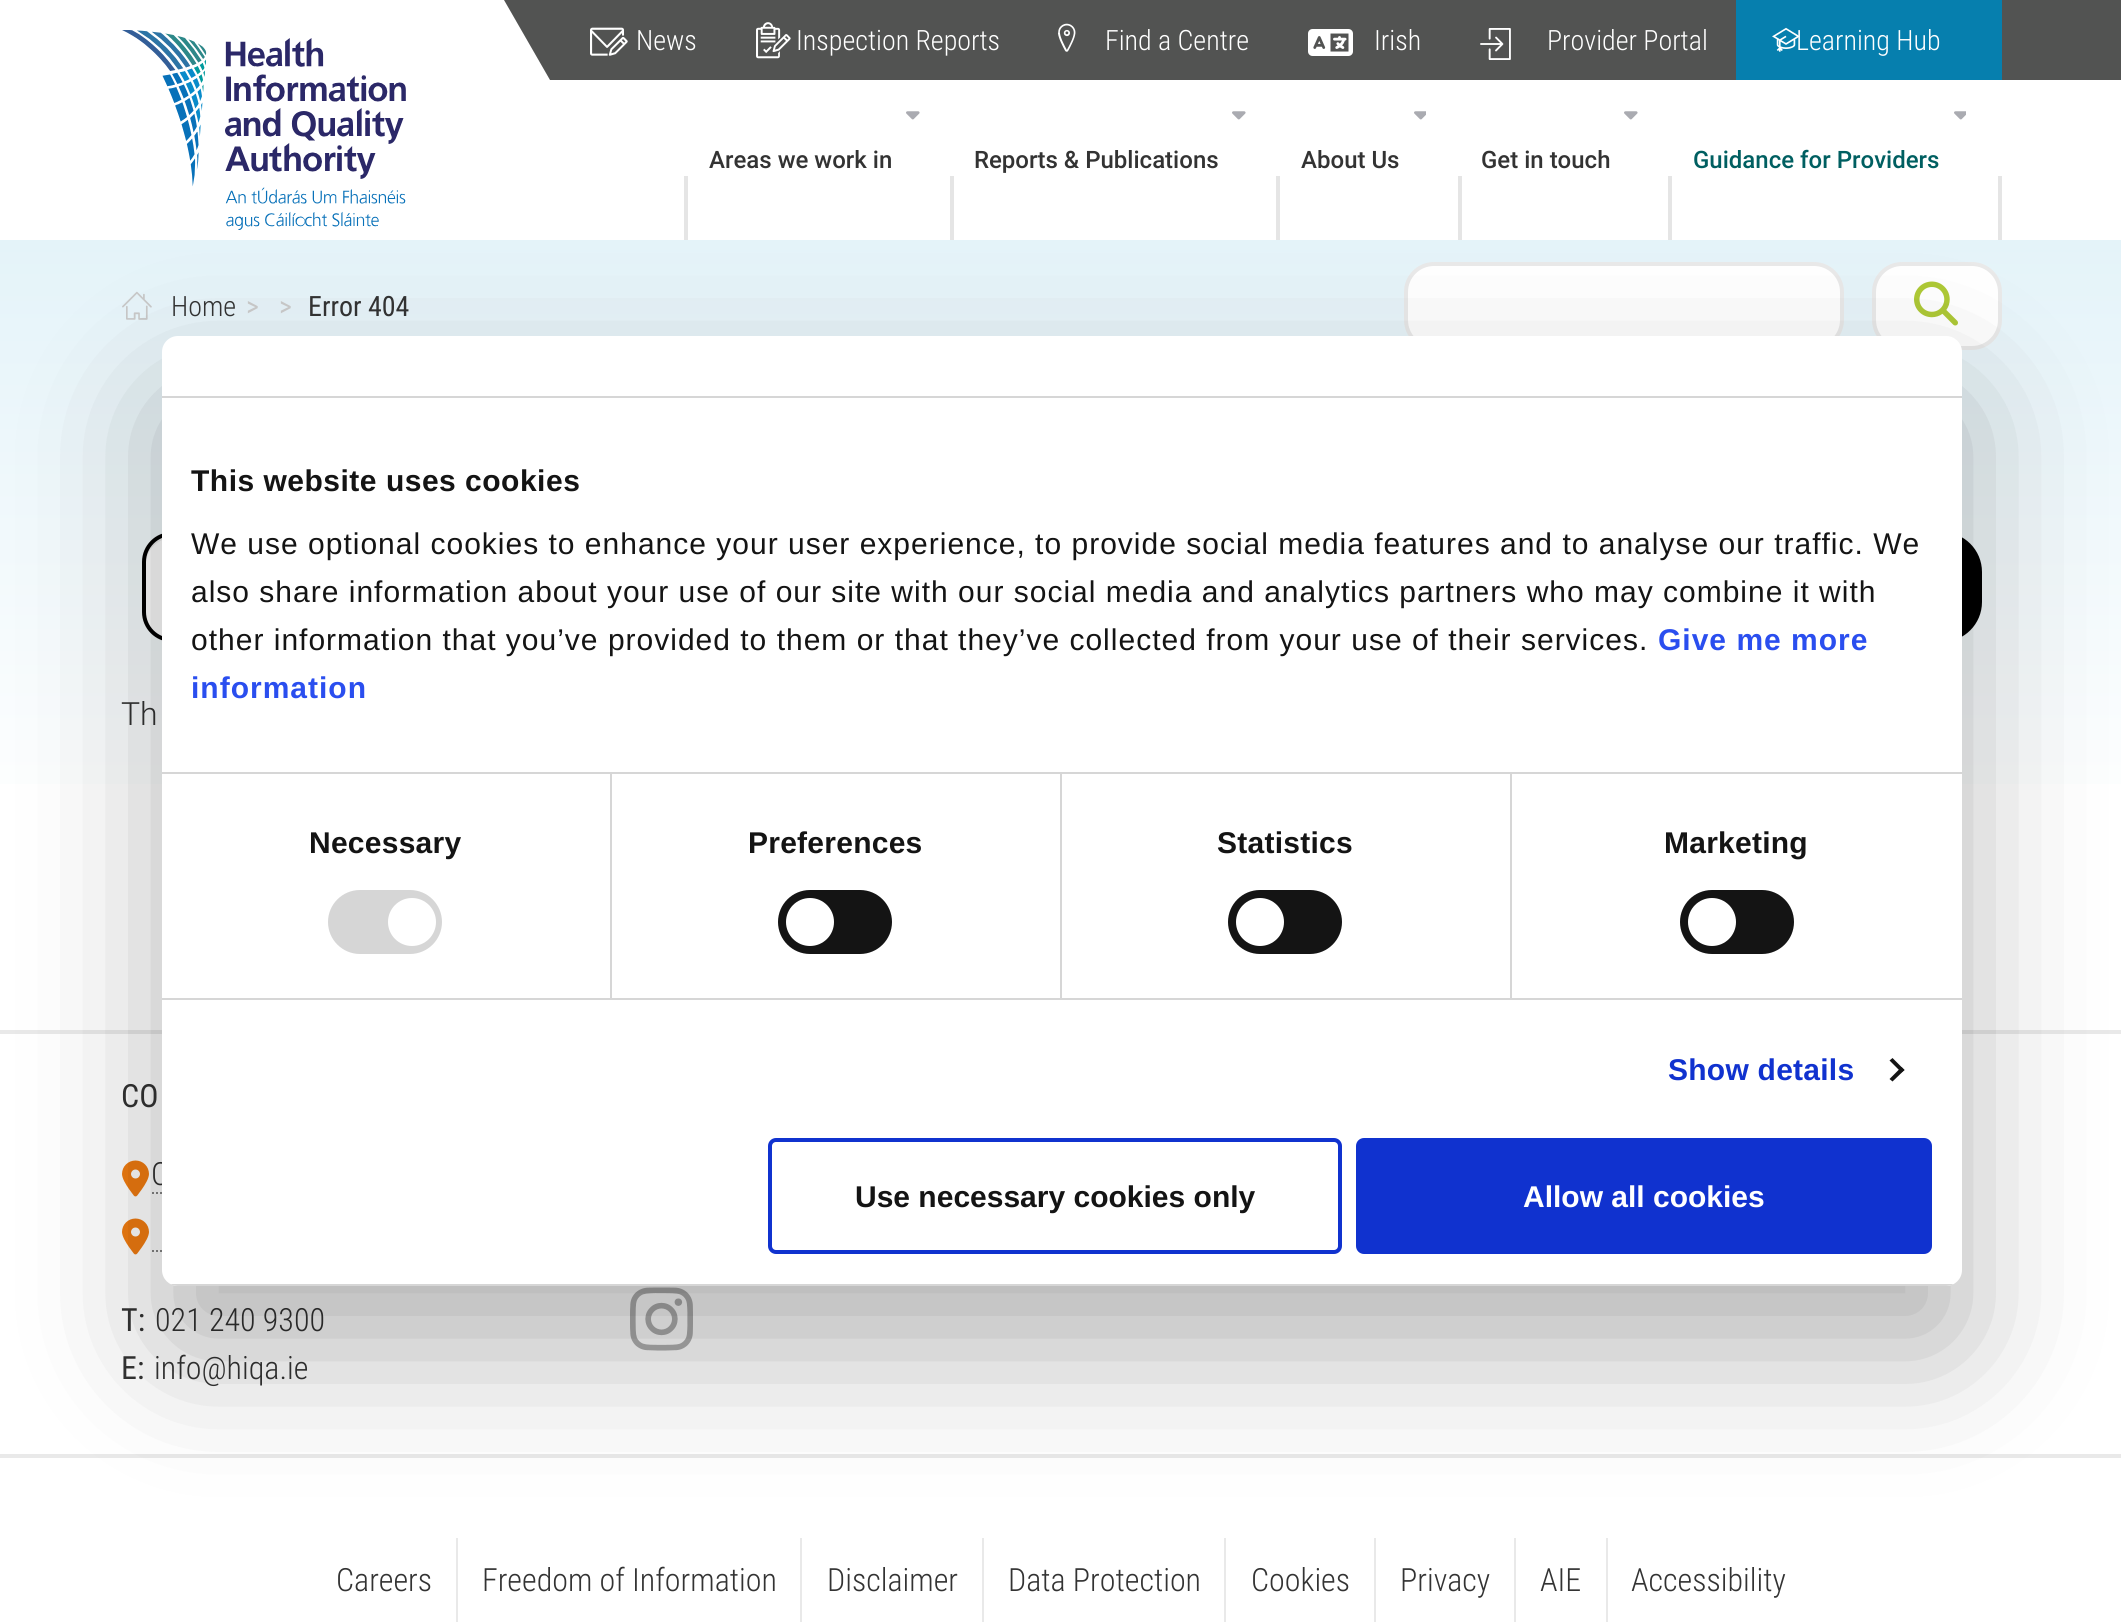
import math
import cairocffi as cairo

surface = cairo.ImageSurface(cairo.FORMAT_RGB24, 2121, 1622)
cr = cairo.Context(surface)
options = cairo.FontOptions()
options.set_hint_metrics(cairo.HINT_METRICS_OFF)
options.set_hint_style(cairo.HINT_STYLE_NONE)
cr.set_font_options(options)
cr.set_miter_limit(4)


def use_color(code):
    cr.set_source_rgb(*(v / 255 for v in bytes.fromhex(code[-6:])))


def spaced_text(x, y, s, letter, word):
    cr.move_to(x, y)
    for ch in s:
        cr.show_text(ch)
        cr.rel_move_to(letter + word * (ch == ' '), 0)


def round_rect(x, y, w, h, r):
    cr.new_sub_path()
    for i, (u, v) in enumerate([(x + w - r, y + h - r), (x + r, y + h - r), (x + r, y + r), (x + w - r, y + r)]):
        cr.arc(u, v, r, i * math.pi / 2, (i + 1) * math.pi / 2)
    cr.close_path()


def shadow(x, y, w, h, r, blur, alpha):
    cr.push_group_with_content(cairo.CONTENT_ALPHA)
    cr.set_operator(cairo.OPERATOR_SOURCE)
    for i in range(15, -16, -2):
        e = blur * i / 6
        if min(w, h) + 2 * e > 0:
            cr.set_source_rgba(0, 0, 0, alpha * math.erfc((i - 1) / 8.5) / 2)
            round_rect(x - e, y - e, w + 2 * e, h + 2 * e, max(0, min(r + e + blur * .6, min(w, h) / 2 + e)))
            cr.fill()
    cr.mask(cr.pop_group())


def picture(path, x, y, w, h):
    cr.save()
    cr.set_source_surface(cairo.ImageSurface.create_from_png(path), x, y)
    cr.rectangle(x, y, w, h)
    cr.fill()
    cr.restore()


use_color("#ffffff")
cr.paint()
picture("img1.png", 122, 30, 284, 200)
use_color("#525352")
cr.rectangle(550, 0, 1571, 80)
cr.fill()
cr.new_path()
cr.move_to(550, 0)
cr.line_to(550, 80)
cr.line_to(504, 0)
cr.close_path()
cr.fill()
picture("img2.png", 590, 27, 38, 29)
cr.select_font_face("Roboto Condensed Light")
cr.set_font_size(28)
use_color("#ffffff")
cr.move_to(636, 50)
cr.show_text("News")
picture("img3.png", 756, 22, 35, 37)
cr.move_to(796, 50)
cr.show_text("Inspection Reports")
picture("img4.png", 1058, 23, 18, 29)
cr.move_to(1105, 50)
cr.show_text("Find a Centre")
picture("img5.png", 1308, 29, 45, 27)
cr.move_to(1374, 50)
cr.show_text("Irish")
picture("img6.png", 1480, 28, 31, 32)
cr.move_to(1547, 50)
cr.show_text("Provider Portal")
use_color("#067fae")
cr.rectangle(1736, 0, 266, 80)
cr.fill()
use_color("#ffffff")
cr.move_to(1796, 50)
cr.show_text("Learning Hub")
picture("img7.png", 1772, 27, 27, 25)
picture("img8.png", 684, 176, 270, 64)
picture("img9.png", 906, 111, 14, 9)
cr.select_font_face("Roboto Medium")
cr.set_font_size(24)
use_color("#333333")
cr.move_to(709, 168)
cr.show_text("Areas we work in")
use_color("#e5e5e5")
cr.rectangle(1276, 176, 4, 64)
cr.fill()
picture("img9.png", 1232, 111, 14, 9)
use_color("#333333")
cr.move_to(974, 168)
cr.show_text("Reports & Publications")
use_color("#e5e5e5")
cr.rectangle(1458, 176, 4, 64)
cr.fill()
picture("img10.png", 1414, 111, 12, 9)
use_color("#333333")
cr.move_to(1301, 168)
cr.show_text("About Us")
use_color("#e5e5e5")
cr.rectangle(1668, 176, 4, 64)
cr.fill()
picture("img9.png", 1624, 111, 14, 9)
use_color("#333333")
cr.move_to(1481, 168)
cr.show_text("Get in touch")
use_color("#e5e5e5")
cr.rectangle(1998, 176, 4, 64)
cr.fill()
picture("img10.png", 1954, 111, 12, 9)
use_color("#005f61")
cr.move_to(1693, 168)
cr.show_text("Guidance for Providers")
gradient = cairo.LinearGradient(1061, 240, 1061, 840)
gradient.add_color_stop_rgba(0, 0.894, 0.953, 0.976, 1)
gradient.add_color_stop_rgba(1, 1, 1, 1, 1)
cr.set_source(gradient)
cr.rectangle(0, 240, 2121, 544)
cr.fill()
picture("img11.png", 122, 291, 30, 29)
cr.select_font_face("Roboto Condensed Light")
cr.set_font_size(28)
use_color("#333333")
cr.move_to(171, 316)
cr.show_text("Home")
cr.select_font_face("Roboto Condensed")
use_color("#cccccc")
cr.move_to(246, 316)
cr.show_text(">")
cr.move_to(279, 316)
cr.show_text(">")
use_color("#333333")
cr.move_to(308, 316)
cr.show_text("Error 404")
use_color("#ffffff")
round_rect(1406, 264, 436, 84, 28)
cr.fill_preserve()
use_color("#e9e9e9")
cr.set_line_width(4)
cr.stroke()
use_color("#ffffff")
round_rect(1874, 264, 126, 84, 28)
cr.fill_preserve()
use_color("#e9e9e9")
cr.stroke()
picture("img12.png", 1914, 281, 44, 45)
use_color("#ffffff")
round_rect(142, 532, 330, 110, 30)
cr.fill()
use_color("#ececec")
cr.new_path()
cr.move_to(172, 538)
cr.line_to(442, 538)
cr.curve_to(456, 538, 468, 550, 468, 564)
cr.curve_to(468, 526, 421, 536, 397, 536)
cr.line_to(217, 536)
cr.curve_to(193, 536, 146, 526, 146, 564)
cr.curve_to(146, 550, 158, 538, 172, 538)
cr.close_path()
cr.fill()
round_rect(144, 534, 326, 106, 28)
use_color("#000000")
cr.stroke()
round_rect(1762, 534, 218, 106, 38)
cr.fill_preserve()
cr.stroke()
cr.select_font_face("Roboto Light")
cr.set_font_size(32)
use_color("#333333")
cr.move_to(121, 725)
cr.show_text("Th")
use_color("#e9e9e9")
cr.rectangle(0, 1030, 2121, 4)
cr.fill()
cr.select_font_face("Roboto Condensed")
use_color("#333333")
cr.move_to(121, 1107)
cr.show_text("CO")
picture("img13.png", 122, 1160, 27, 37)
cr.select_font_face("Roboto Condensed Light")
cr.move_to(151, 1185)
cr.show_text("C")
cr.new_path()
cr.move_to(152, 1193)
cr.line_to(286, 1193)
use_color("#858585")
cr.set_line_width(2)
cr.set_dash([2, 2])
cr.stroke()
picture("img13.png", 122, 1218, 27, 37)
cr.new_path()
cr.move_to(152, 1251)
cr.line_to(308, 1251)
cr.stroke()
cr.select_font_face("Roboto Condensed")
use_color("#333333")
cr.move_to(121, 1331)
cr.show_text("T:")
cr.select_font_face("Roboto Condensed Light")
cr.move_to(155, 1331)
cr.show_text("021 240 9300")
cr.select_font_face("Roboto Condensed")
cr.move_to(121, 1379)
cr.show_text("E:")
cr.select_font_face("Roboto Condensed Light")
cr.move_to(154, 1379)
cr.show_text("info@hiqa.ie")
picture("img14.png", 630, 1287, 63, 64)
use_color("#e9e9e9")
cr.rectangle(0, 1454, 2121, 4)
cr.fill()
use_color("#333333")
cr.move_to(336, 1591)
cr.show_text("Careers")
use_color("#e9e9e9")
cr.rectangle(456, 1538, 2, 84)
cr.fill()
use_color("#333333")
cr.move_to(482, 1591)
cr.show_text("Freedom of Information")
use_color("#e9e9e9")
cr.rectangle(800, 1538, 2, 84)
cr.fill()
use_color("#333333")
cr.move_to(827, 1591)
cr.show_text("Disclaimer")
use_color("#e9e9e9")
cr.rectangle(982, 1538, 2, 84)
cr.fill()
use_color("#333333")
cr.move_to(1008, 1591)
cr.show_text("Data Protection")
use_color("#e9e9e9")
cr.rectangle(1224, 1538, 2, 84)
cr.fill()
use_color("#333333")
cr.move_to(1251, 1591)
cr.show_text("Cookies")
use_color("#e9e9e9")
cr.rectangle(1374, 1538, 2, 84)
cr.fill()
use_color("#333333")
cr.move_to(1400, 1591)
cr.show_text("Privacy")
use_color("#e9e9e9")
cr.rectangle(1514, 1538, 2, 84)
cr.fill()
use_color("#333333")
cr.move_to(1540, 1591)
cr.show_text("AIE")
use_color("#e9e9e9")
cr.rectangle(1606, 1538, 2, 84)
cr.fill()
use_color("#333333")
cr.move_to(1631, 1591)
cr.show_text("Accessibility")
use_color("#000000")
shadow(162, 400, 1800, 950, 16, 68, 0.3)
use_color("#ffffff")
round_rect(162, 336, 1800, 950, 16)
cr.fill()
use_color("#d6d6d6")
cr.rectangle(162, 396, 1800, 2)
cr.fill()
cr.rectangle(162, 772, 1800, 2)
cr.fill()
cr.select_font_face("Liberation Sans", cairo.FONT_SLANT_NORMAL, cairo.FONT_WEIGHT_BOLD)
cr.set_font_size(30)
use_color("#141414")
spaced_text(191, 491, "This website uses cookies", 0.5, 0)
cr.select_font_face("Liberation Sans")
spaced_text(191, 554, "We use optional cookies to enhance your user experience, to provide social media features and to analyse our traffic. We", 1, 0)
spaced_text(191, 602, "also share information about your use of our site with our social media and analytics partners who may combine it with", 1, 0)
spaced_text(191, 650, "other information that you’ve provided to them or that they’ve collected from your use of their services.", 1, 0)
cr.select_font_face("Liberation Sans", cairo.FONT_SLANT_NORMAL, cairo.FONT_WEIGHT_BOLD)
use_color("#2a4eef")
spaced_text(1658, 650, "Give me more", 1, 0)
spaced_text(191, 698, "information", 1, 0)
use_color("#d6d6d6")
cr.rectangle(162, 998, 1800, 2)
cr.fill()
cr.rectangle(610, 774, 2, 224)
cr.fill()
use_color("#141414")
spaced_text(309, 853, "Necessary", 0.25, 0)
use_color("#d6d6d6")
round_rect(328, 890, 114, 64, 32)
cr.fill()
use_color("#ffffff")
cr.arc(412, 922, 24, 0, 2 * math.pi)
cr.fill()
use_color("#d6d6d6")
cr.rectangle(1060, 774, 2, 224)
cr.fill()
use_color("#141414")
spaced_text(748, 853, "Preferences", 0.25, 0)
round_rect(778, 890, 114, 64, 32)
cr.fill()
use_color("#ffffff")
cr.arc(810, 922, 24, 0, 2 * math.pi)
cr.fill()
use_color("#d6d6d6")
cr.rectangle(1510, 774, 2, 224)
cr.fill()
use_color("#141414")
spaced_text(1217, 853, "Statistics", 0.25, 0)
round_rect(1228, 890, 114, 64, 32)
cr.fill()
use_color("#ffffff")
cr.arc(1260, 922, 24, 0, 2 * math.pi)
cr.fill()
use_color("#141414")
spaced_text(1664, 853, "Marketing", 0.25, 0)
round_rect(1680, 890, 114, 64, 32)
cr.fill()
use_color("#ffffff")
cr.arc(1712, 922, 24, 0, 2 * math.pi)
cr.fill()
use_color("#1032cf")
spaced_text(1668, 1080, "Show details", 0.25, 0)
use_color("#141414")
cr.new_path()
cr.move_to(1892.5, 1058)
cr.line_to(1904.5, 1070)
cr.line_to(1901.5, 1072.5)
cr.line_to(1889.5, 1060.5)
cr.close_path()
cr.fill()
cr.new_path()
cr.move_to(1901.5, 1067)
cr.line_to(1904.5, 1070)
cr.line_to(1892.5, 1081.5)
cr.line_to(1889.5, 1079)
cr.close_path()
cr.fill()
cr.save()
round_rect(162, 336, 1800, 950, 16)
cr.clip()
use_color("#d6d6d6")
cr.rectangle(162, 1284, 1800, 2)
cr.fill()
cr.restore()
round_rect(770, 1140, 570, 112, 6)
use_color("#1032cf")
cr.set_line_width(4)
cr.set_dash([])
cr.stroke()
use_color("#141414")
cr.move_to(855, 1207)
cr.show_text("Use necessary cookies only")
use_color("#1032cf")
round_rect(1358, 1140, 572, 112, 6)
cr.fill_preserve()
cr.stroke()
use_color("#ffffff")
cr.move_to(1523, 1207)
cr.show_text("Allow all cookies")
surface.write_to_png("result.png")
